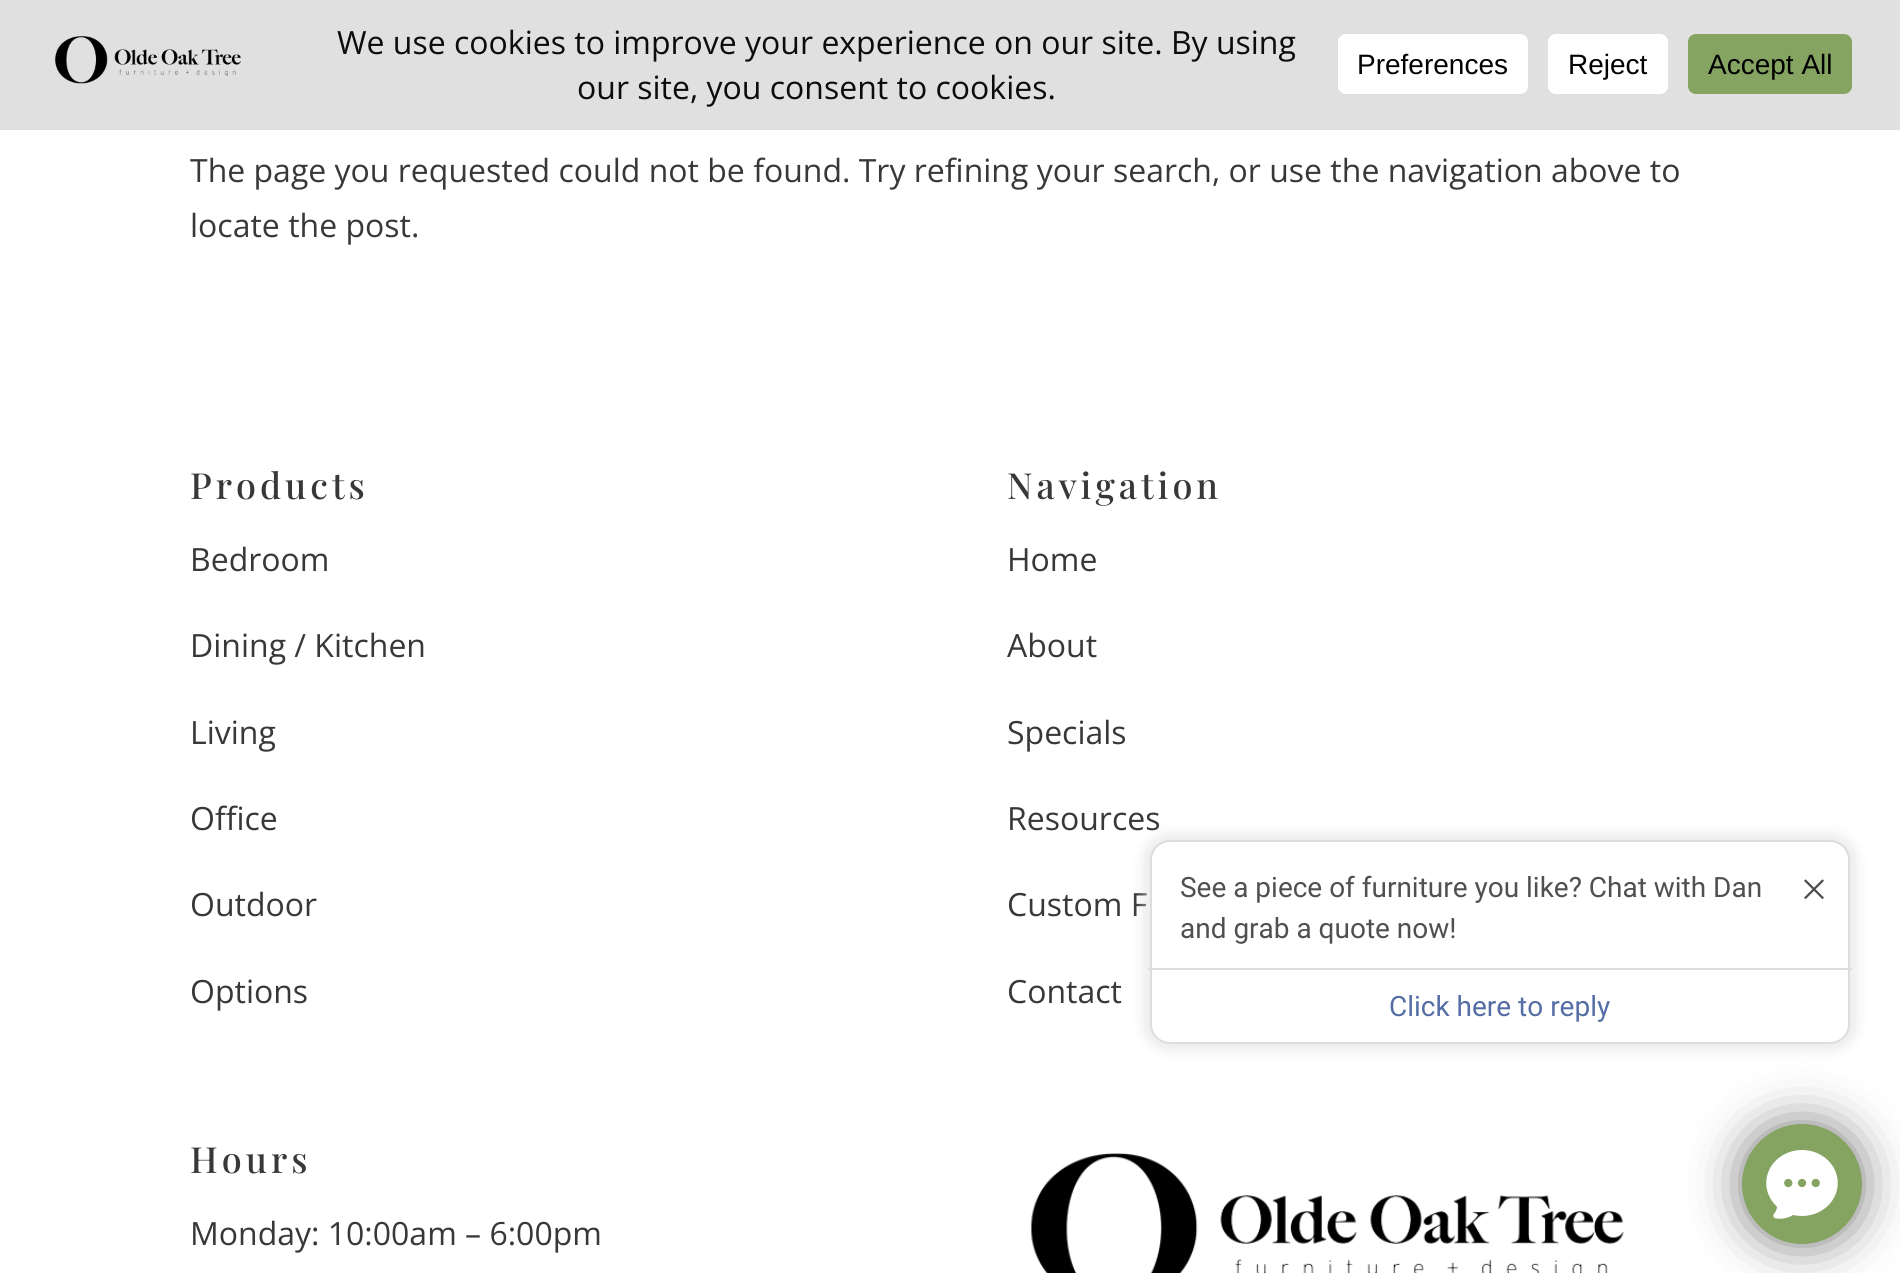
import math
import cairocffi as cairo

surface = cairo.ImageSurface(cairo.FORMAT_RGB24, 1900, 1273)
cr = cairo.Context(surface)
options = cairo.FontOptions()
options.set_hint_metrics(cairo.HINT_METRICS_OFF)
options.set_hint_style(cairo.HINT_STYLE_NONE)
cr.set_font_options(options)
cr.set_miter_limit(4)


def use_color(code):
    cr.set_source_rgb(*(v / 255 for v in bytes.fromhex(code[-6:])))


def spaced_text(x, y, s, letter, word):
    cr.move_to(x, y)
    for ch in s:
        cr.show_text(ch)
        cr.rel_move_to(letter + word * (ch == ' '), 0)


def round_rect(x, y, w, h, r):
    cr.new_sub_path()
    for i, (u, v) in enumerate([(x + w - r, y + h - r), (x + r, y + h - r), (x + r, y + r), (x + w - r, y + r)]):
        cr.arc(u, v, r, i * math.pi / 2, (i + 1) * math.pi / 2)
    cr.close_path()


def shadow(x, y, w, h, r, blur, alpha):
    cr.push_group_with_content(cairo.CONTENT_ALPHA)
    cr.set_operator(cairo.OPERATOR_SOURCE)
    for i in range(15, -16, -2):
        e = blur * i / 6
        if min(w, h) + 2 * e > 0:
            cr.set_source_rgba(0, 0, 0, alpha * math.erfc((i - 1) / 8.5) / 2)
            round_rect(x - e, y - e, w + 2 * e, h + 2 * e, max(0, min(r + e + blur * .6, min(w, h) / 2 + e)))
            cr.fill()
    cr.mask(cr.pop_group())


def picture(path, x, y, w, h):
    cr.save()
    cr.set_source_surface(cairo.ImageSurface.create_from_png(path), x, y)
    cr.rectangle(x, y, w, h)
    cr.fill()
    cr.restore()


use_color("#ffffff")
cr.paint()
use_color("#e0e0e0")
cr.rectangle(0, 0, 1900, 130)
cr.fill()
picture("img1.png", 55, 36, 186, 48)
cr.select_font_face("Open Sans")
cr.set_font_size(32)
use_color("#0c0c0c")
cr.move_to(337, 54)
cr.show_text("We use cookies to improve your experience on our site. By using")
cr.move_to(577, 99)
cr.show_text("our site, you consent to cookies.")
use_color("#ffffff")
round_rect(1338, 34, 190, 60, 8)
cr.fill()
cr.select_font_face("Liberation Sans")
cr.set_font_size(28)
use_color("#000000")
cr.move_to(1357, 74)
cr.show_text("Preferences")
use_color("#ffffff")
round_rect(1548, 34, 120, 60, 8)
cr.fill()
use_color("#000000")
cr.move_to(1568, 74)
cr.show_text("Reject")
use_color("#85a361")
round_rect(1688, 34, 164, 60, 8)
cr.fill()
use_color("#000000")
cr.move_to(1708, 74)
cr.show_text("Accept All")
cr.select_font_face("Open Sans")
cr.set_font_size(32)
use_color("#383838")
cr.move_to(190, 182)
cr.show_text("The page you requested could not be found. Try refining your search, or use the navigation above to")
cr.move_to(190, 237)
cr.show_text("locate the post.")
cr.select_font_face("Playfair Display Medium")
cr.set_font_size(36)
spaced_text(190, 499, "Products", 4, 0)
cr.select_font_face("Open Sans")
cr.set_font_size(32)
cr.move_to(190, 571)
cr.show_text("Bedroom")
cr.move_to(190, 657)
cr.show_text("Dining / Kitchen")
cr.move_to(190, 744)
cr.show_text("Living")
cr.move_to(190, 830)
cr.show_text("Office")
cr.move_to(190, 916)
cr.show_text("Outdoor")
cr.move_to(190, 1003)
cr.show_text("Options")
cr.select_font_face("Playfair Display Medium")
cr.set_font_size(36)
spaced_text(1007, 499, "Navigation", 4, 0)
cr.select_font_face("Open Sans")
cr.set_font_size(32)
cr.move_to(1007, 571)
cr.show_text("Home")
cr.move_to(1007, 657)
cr.show_text("About")
cr.move_to(1007, 744)
cr.show_text("Specials")
cr.move_to(1007, 830)
cr.show_text("Resources")
cr.move_to(1007, 916)
cr.show_text("Custom F")
cr.move_to(1007, 1003)
cr.show_text("Contact")
cr.select_font_face("Playfair Display Medium")
cr.set_font_size(36)
spaced_text(190, 1173, "Hours", 4, 0)
cr.select_font_face("Open Sans")
cr.set_font_size(32)
cr.move_to(190, 1245)
cr.show_text("Monday: 10:00am – 6:00pm")
picture("img2.png", 1030, 1153, 594, 120)
use_color("#dcdcdc")
shadow(1142, 832, 716, 220, 28, 5, 0.5)
use_color("#ffffff")
round_rect(1151, 841, 698, 202, 19)
cr.fill_preserve()
use_color("#dddddd")
cr.stroke()
cr.select_font_face("Roboto")
cr.set_font_size(28)
use_color("#505050")
cr.move_to(1180, 897)
cr.show_text("See a piece of furniture you like? Chat with Dan")
cr.move_to(1180, 938)
cr.show_text("and grab a quote now!")
picture("img3.png", 1804, 879, 20, 21)
use_color("#dedcdc")
cr.rectangle(1148, 968, 704, 2)
cr.fill()
use_color("#546ea5")
cr.move_to(1389, 1016)
cr.show_text("Click here to reply")
use_color("#7a7a7a")
shadow(1742, 1124, 120, 120, 60, 25, 1)
use_color("#85a361")
cr.arc(1802, 1184, 60, 0, 2 * math.pi)
cr.fill()
picture("img4.png", 1766, 1150, 72, 69)
surface.write_to_png("result.png")
